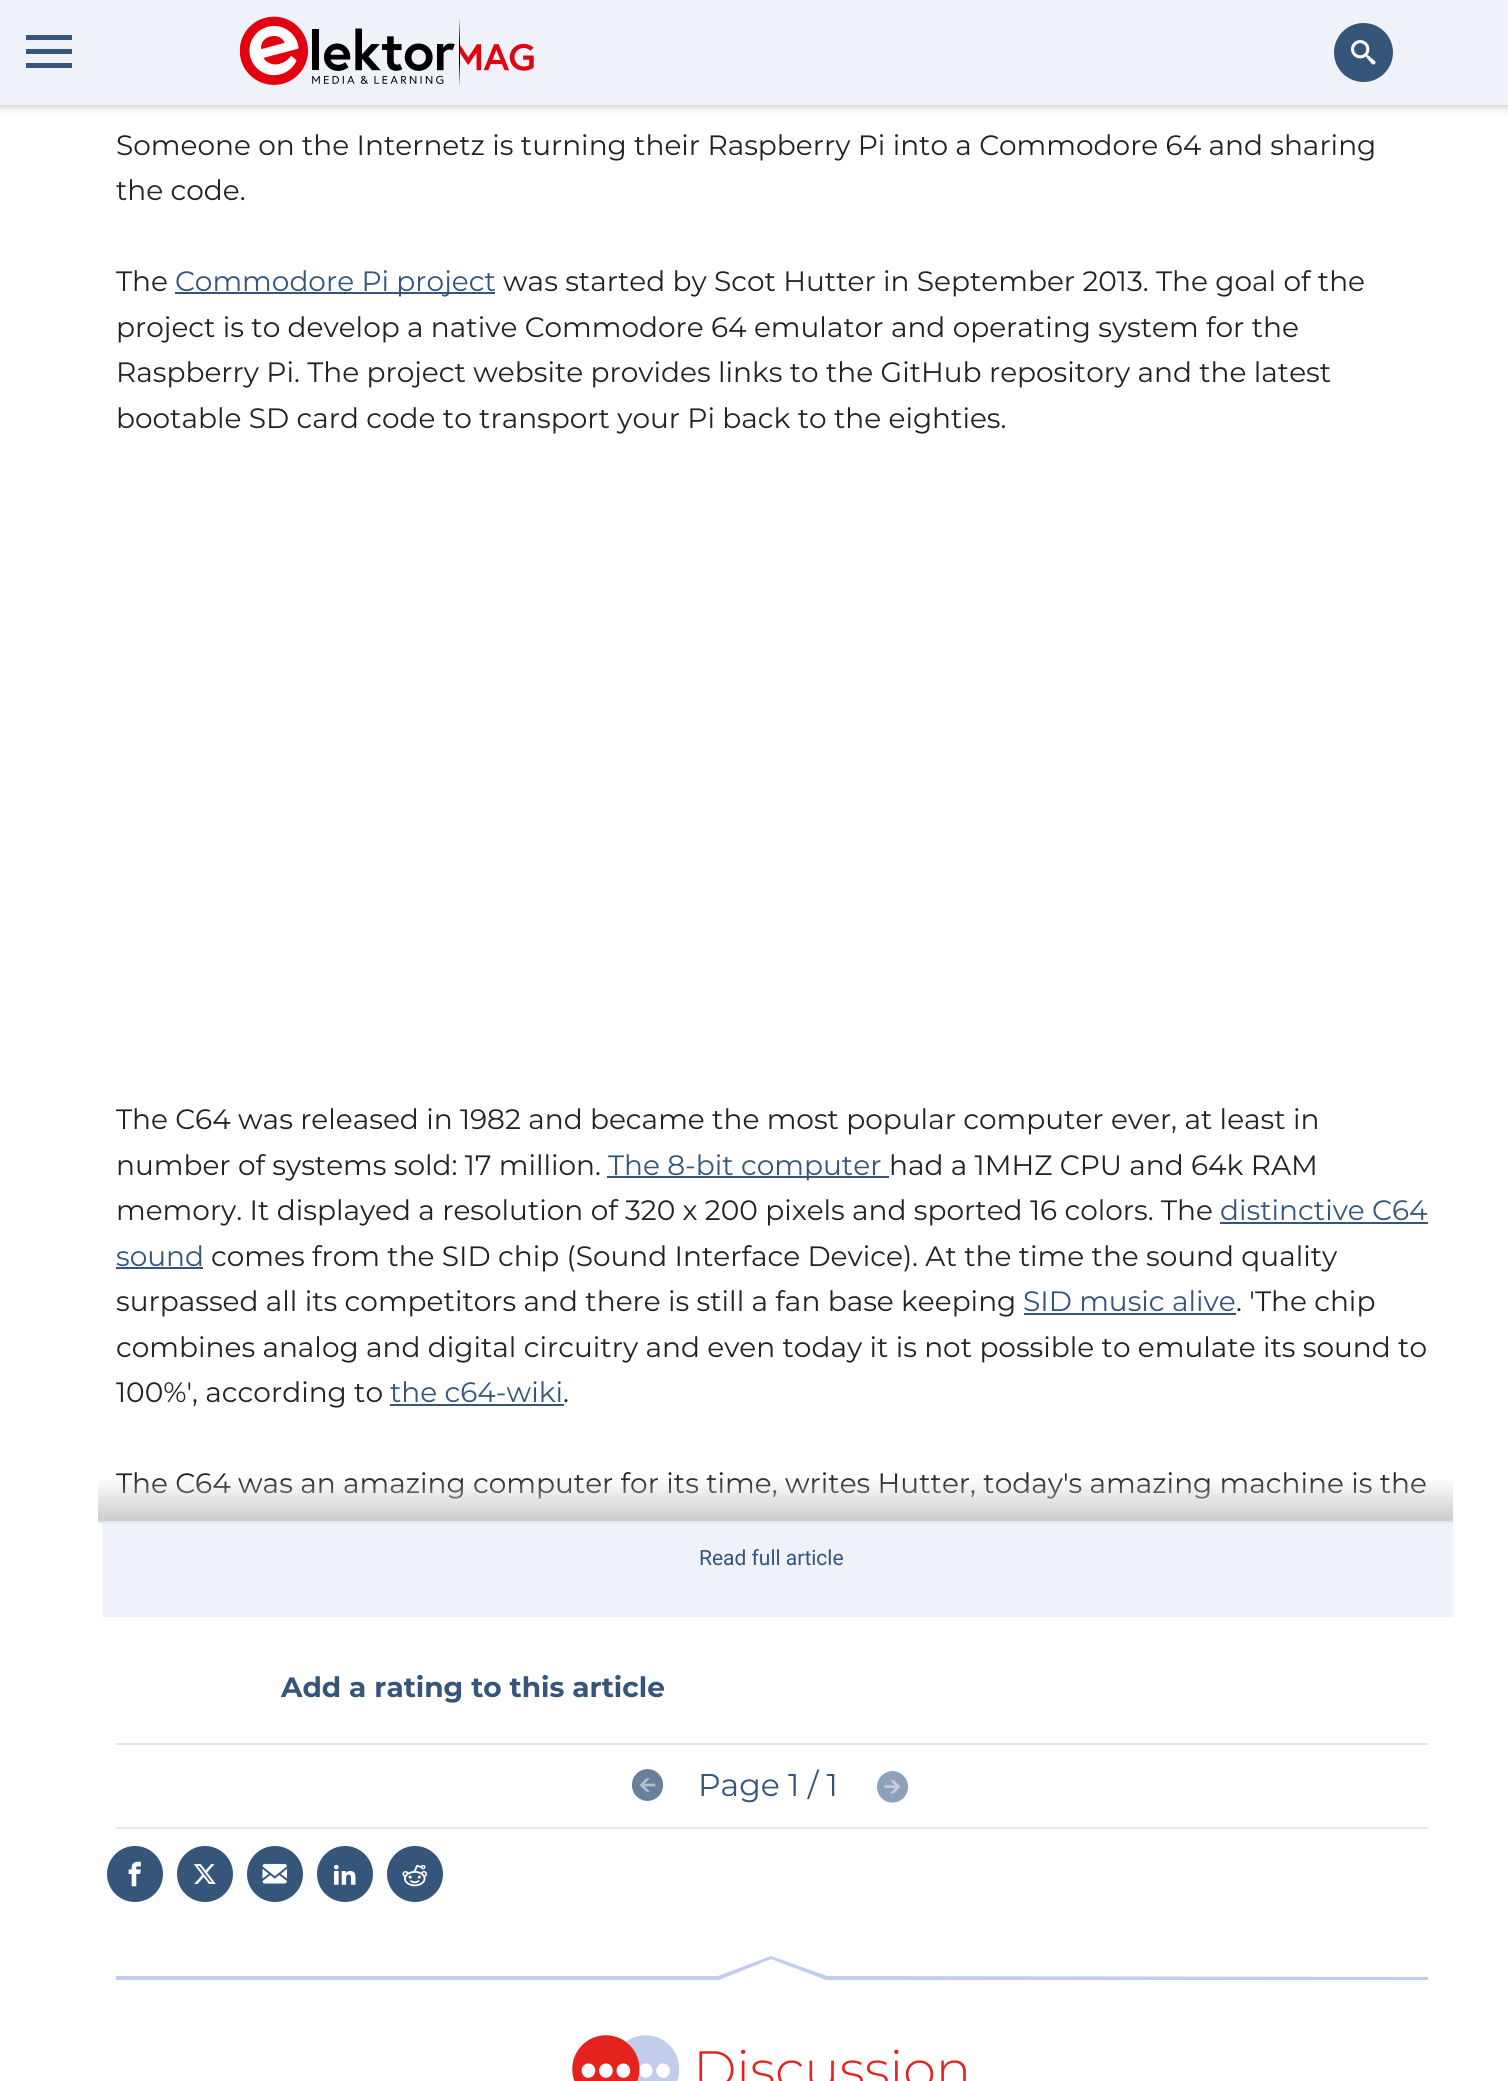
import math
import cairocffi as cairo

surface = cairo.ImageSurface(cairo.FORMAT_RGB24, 1508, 2081)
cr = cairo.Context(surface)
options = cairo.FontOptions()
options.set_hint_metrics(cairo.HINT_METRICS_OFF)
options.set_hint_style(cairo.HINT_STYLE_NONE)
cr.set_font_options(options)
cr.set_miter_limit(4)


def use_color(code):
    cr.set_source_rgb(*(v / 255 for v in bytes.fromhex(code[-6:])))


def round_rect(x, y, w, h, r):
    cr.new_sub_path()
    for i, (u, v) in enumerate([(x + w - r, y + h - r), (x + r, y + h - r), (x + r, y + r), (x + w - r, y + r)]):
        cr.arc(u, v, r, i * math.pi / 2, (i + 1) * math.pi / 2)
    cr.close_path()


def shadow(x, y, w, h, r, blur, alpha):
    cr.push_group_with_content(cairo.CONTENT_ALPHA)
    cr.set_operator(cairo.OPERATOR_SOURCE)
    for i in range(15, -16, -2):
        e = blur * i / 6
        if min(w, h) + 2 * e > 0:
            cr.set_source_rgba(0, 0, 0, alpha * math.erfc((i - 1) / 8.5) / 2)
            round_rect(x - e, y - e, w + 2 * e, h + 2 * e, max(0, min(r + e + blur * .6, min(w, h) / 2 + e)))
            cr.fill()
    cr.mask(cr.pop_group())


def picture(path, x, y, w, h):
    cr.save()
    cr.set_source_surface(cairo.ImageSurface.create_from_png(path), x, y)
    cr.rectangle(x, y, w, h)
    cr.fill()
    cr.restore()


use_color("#ffffff")
cr.paint()
use_color("#000000")
shadow(0, 0, 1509, 105, 0, 5, 0.3)
use_color("#f0f2fa")
cr.rectangle(0, 0, 1508, 105)
cr.fill()
use_color("#35557a")
cr.rectangle(26, 35, 46, 5)
cr.fill()
cr.rectangle(26, 49, 46, 5)
cr.fill()
cr.rectangle(26, 63, 46, 5)
cr.fill()
picture("img1.png", 240, 16, 294, 70)
cr.arc(1363.5, 52.5, 29.5, 0, 2 * math.pi)
cr.fill()
picture("img2.png", 1351, 40, 25, 25)
use_color("#e0e6f5")
cr.rectangle(98, 1521, 1355, 2)
cr.fill()
cr.select_font_face("Montserrat")
cr.set_font_size(28)
use_color("#222222")
cr.move_to(116, 155)
cr.show_text("Someone on the Internetz is turning their Raspberry Pi into a Commodore 64 and sharing")
cr.move_to(116, 200)
cr.show_text("the code.")
cr.move_to(116, 291)
cr.show_text("The")
use_color("#35557a")
cr.rectangle(175, 292, 320, 2)
cr.fill()
cr.move_to(175, 291)
cr.show_text("Commodore Pi project")
use_color("#222222")
cr.move_to(503, 291)
cr.show_text("was started by Scot Hutter in September 2013. The goal of the")
cr.move_to(116, 337)
cr.show_text("project is to develop a native Commodore 64 emulator and operating system for the")
cr.move_to(116, 382)
cr.show_text("Raspberry Pi. The project website provides links to the GitHub repository and the latest")
cr.move_to(116, 428)
cr.show_text("bootable SD card code to transport your Pi back to the eighties.")
cr.move_to(116, 1129)
cr.show_text("The C64 was released in 1982 and became the most popular computer ever, at least in")
cr.move_to(116, 1175)
cr.show_text("number of systems sold: 17 million.")
use_color("#35557a")
cr.rectangle(607, 1176, 282, 2)
cr.fill()
cr.move_to(608, 1175)
cr.show_text("The 8-bit computer")
use_color("#222222")
cr.move_to(889, 1175)
cr.show_text("had a 1MHZ CPU and 64k RAM")
cr.move_to(116, 1220)
cr.show_text("memory. It displayed a resolution of 320 x 200 pixels and sported 16 colors. The")
use_color("#35557a")
cr.move_to(1220, 1220)
cr.show_text("distinctive C64")
cr.rectangle(1220, 1222, 208, 2)
cr.fill()
cr.move_to(116, 1266)
cr.show_text("sound")
cr.rectangle(116, 1267, 87, 2)
cr.fill()
use_color("#222222")
cr.move_to(211, 1266)
cr.show_text("comes from the SID chip (Sound Interface Device). At the time the sound quality")
cr.move_to(116, 1311)
cr.show_text("surpassed all its competitors and there is still a fan base keeping")
use_color("#35557a")
cr.move_to(1023, 1311)
cr.show_text("SID music alive")
cr.rectangle(1024, 1313, 212, 2)
cr.fill()
use_color("#222222")
cr.move_to(1236, 1311)
cr.show_text(". 'The chip")
cr.move_to(116, 1357)
cr.show_text("combines analog and digital circuitry and even today it is not possible to emulate its sound to")
cr.move_to(116, 1402)
cr.show_text("100%', according to")
use_color("#35557a")
cr.move_to(390, 1402)
cr.show_text("the c64-wiki")
cr.rectangle(390, 1404, 174, 2)
cr.fill()
use_color("#222222")
cr.move_to(563, 1402)
cr.show_text(".")
cr.move_to(116, 1493)
cr.show_text("The C64 was an amazing computer for its time, writes Hutter, today's amazing machine is the")
gradient = cairo.LinearGradient(795, 1451, 795, 1521)
gradient.add_color_stop_rgba(0.37, 0.8, 0.8, 0.8, 0)
gradient.add_color_stop_rgba(1, 0.8, 0.8, 0.8, 1)
cr.set_source(gradient)
cr.rectangle(98, 1478, 1355, 43)
cr.fill()
use_color("#f0f2fa")
cr.rectangle(102, 1523, 14, 94)
cr.fill()
cr.rectangle(116, 1523, 1337, 94)
cr.fill()
cr.select_font_face("Roboto")
cr.set_font_size(21)
use_color("#35557a")
cr.move_to(699, 1565)
cr.show_text("Read full article")
use_color("#e0e6f5")
cr.rectangle(116, 1743, 1312, 2)
cr.fill()
cr.select_font_face("Montserrat", cairo.FONT_SLANT_NORMAL, cairo.FONT_WEIGHT_BOLD)
cr.set_font_size(28)
use_color("#35557a")
cr.move_to(281, 1697)
cr.show_text("Add a rating to this article")
use_color("#e0e6f5")
cr.rectangle(116, 1827, 1312, 2)
cr.fill()
use_color("#9aaabd")
round_rect(632, 1769, 31, 32, 15.5)
cr.fill()
picture("img3.png", 632, 1769, 31, 32)
cr.select_font_face("Montserrat")
cr.set_font_size(31.5)
use_color("#35557a")
cr.move_to(698, 1796)
cr.show_text("Page 1 / 1")
use_color("#e4edf7")
round_rect(877, 1771, 31, 32, 15.5)
cr.fill()
picture("img4.png", 877, 1771, 31, 32)
use_color("#35557a")
cr.arc(135, 1874, 28, 0, 2 * math.pi)
cr.fill()
picture("img5.png", 128, 1861, 13, 26)
cr.arc(205, 1874, 28, 0, 2 * math.pi)
cr.fill()
picture("img6.png", 193, 1864, 23, 20)
cr.arc(275, 1874, 28, 0, 2 * math.pi)
cr.fill()
picture("img7.png", 262, 1863, 25, 21)
cr.arc(345, 1874, 28, 0, 2 * math.pi)
cr.fill()
picture("img8.png", 334, 1864, 22, 21)
cr.arc(415, 1874, 28, 0, 2 * math.pi)
cr.fill()
picture("img9.png", 402, 1864, 25, 23)
use_color("#c1cdea")
cr.new_path()
cr.move_to(1428, 1980)
cr.line_to(826, 1980)
cr.line_to(771, 1959)
cr.line_to(719, 1980)
cr.line_to(116, 1980)
cr.line_to(116, 1976)
cr.line_to(718, 1976)
cr.line_to(771, 1956)
cr.line_to(827, 1976)
cr.line_to(1428, 1977)
cr.close_path()
cr.fill()
picture("img10.png", 572, 2035, 107, 46)
cr.select_font_face("Montserrat Light")
cr.set_font_size(52.5)
use_color("#e4231e")
cr.move_to(693, 2088)
cr.show_text("Discussion")
surface.write_to_png("result.png")
